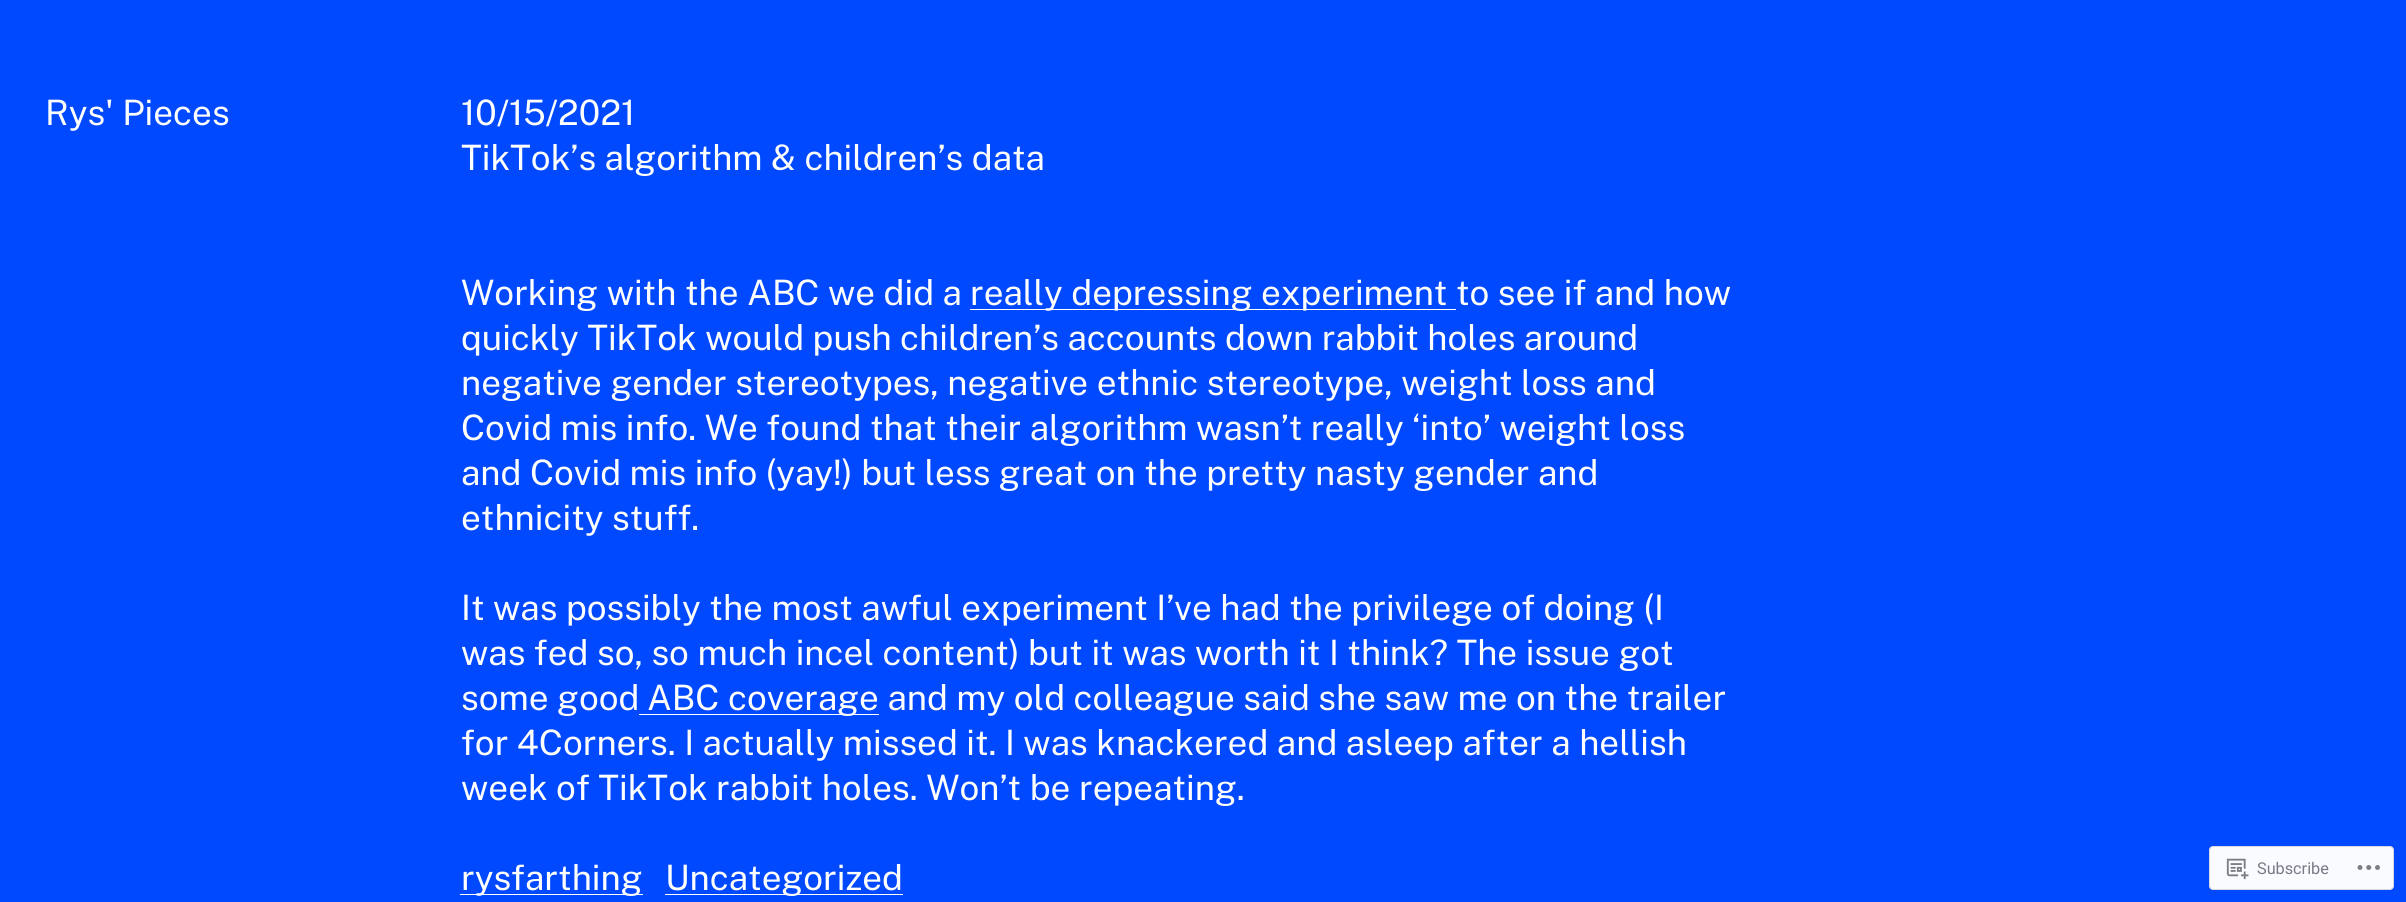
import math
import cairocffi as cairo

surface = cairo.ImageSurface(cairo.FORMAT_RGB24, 2406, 902)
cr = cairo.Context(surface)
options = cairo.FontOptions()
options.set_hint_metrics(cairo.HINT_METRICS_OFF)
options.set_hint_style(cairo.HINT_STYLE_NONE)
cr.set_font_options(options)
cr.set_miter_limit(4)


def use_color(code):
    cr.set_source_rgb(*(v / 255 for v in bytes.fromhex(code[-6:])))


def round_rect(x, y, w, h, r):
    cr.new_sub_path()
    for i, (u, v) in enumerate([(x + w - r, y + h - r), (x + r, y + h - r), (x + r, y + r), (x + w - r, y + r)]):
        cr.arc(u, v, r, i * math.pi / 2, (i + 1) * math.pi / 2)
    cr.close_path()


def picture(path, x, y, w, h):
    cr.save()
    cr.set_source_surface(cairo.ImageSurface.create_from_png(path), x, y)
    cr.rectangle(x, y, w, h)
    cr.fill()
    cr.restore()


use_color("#0149ff")
cr.paint()
cr.select_font_face("Public Sans")
cr.set_font_size(35)
use_color("#ffffff")
cr.move_to(45, 125)
cr.show_text("Rys' Pieces")
cr.move_to(461, 125)
cr.show_text("10/15/2021")
cr.move_to(461, 170)
cr.show_text("TikTok’s algorithm & children’s data")
cr.move_to(461, 305)
cr.show_text("Working with the ABC we did a")
cr.rectangle(970, 309, 486, 1)
cr.fill()
cr.move_to(970, 305)
cr.show_text("really depressing experiment to see if and how")
cr.move_to(461, 350)
cr.show_text("quickly TikTok would push children’s accounts down rabbit holes around")
cr.move_to(461, 395)
cr.show_text("negative gender stereotypes, negative ethnic stereotype, weight loss and")
cr.move_to(461, 440)
cr.show_text("Covid mis info. We found that their algorithm wasn’t really ‘into’ weight loss")
cr.move_to(461, 485)
cr.show_text("and Covid mis info (yay!) but less great on the pretty nasty gender and")
cr.move_to(461, 530)
cr.show_text("ethnicity stuff.")
cr.move_to(461, 620)
cr.show_text("It was possibly the most awful experiment I’ve had the privilege of doing (I")
cr.move_to(461, 665)
cr.show_text("was fed so, so much incel content) but it was worth it I think? The issue got")
cr.move_to(461, 710)
cr.show_text("some good")
cr.rectangle(639, 714, 240, 1)
cr.fill()
cr.move_to(647, 710)
cr.show_text("ABC coverage and my old colleague said she saw me on the trailer")
cr.move_to(461, 755)
cr.show_text("for 4Corners. I actually missed it. I was knackered and asleep after a hellish")
cr.move_to(461, 800)
cr.show_text("week of TikTok rabbit holes. Won’t be repeating.")
cr.rectangle(460, 894, 183, 1)
cr.fill()
cr.move_to(461, 890)
cr.show_text("rysfarthing")
cr.rectangle(665, 894, 238, 1)
cr.fill()
cr.move_to(665, 890)
cr.show_text("Uncategorized")
use_color("#fafbff")
round_rect(2209.5, 846.5, 184, 43, 3.5)
cr.fill_preserve()
use_color("#d8d9df")
cr.set_line_width(1)
cr.stroke()
picture("img1.png", 2226, 858, 23, 22)
cr.select_font_face("Roboto")
cr.set_font_size(16.25)
use_color("#767b85")
cr.move_to(2257, 874)
cr.show_text("Subscribe")
picture("img2.png", 2357, 865, 23, 5)
surface.write_to_png("result.png")
